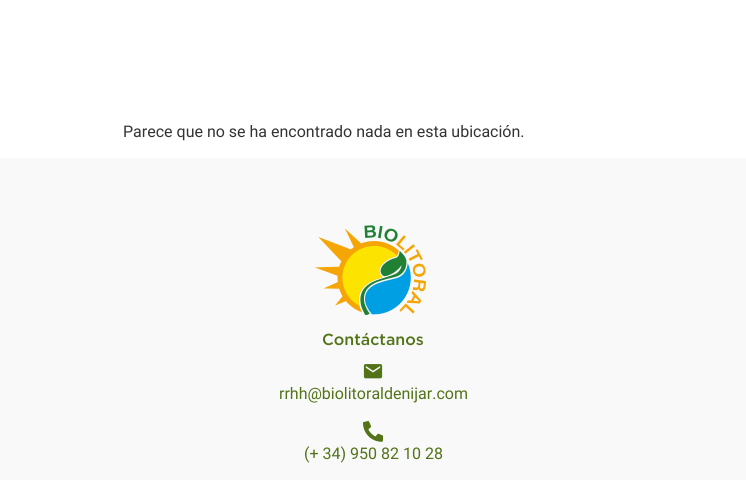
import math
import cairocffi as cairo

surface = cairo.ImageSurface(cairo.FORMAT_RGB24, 746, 480)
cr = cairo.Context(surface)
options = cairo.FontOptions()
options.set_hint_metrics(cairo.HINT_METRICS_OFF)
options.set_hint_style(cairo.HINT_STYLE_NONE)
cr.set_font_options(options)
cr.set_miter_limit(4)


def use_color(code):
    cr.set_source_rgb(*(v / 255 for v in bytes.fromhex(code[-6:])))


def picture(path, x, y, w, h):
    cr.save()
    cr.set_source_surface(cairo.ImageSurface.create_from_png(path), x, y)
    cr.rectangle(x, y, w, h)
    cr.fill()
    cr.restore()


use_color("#ffffff")
cr.paint()
cr.select_font_face("Roboto")
cr.set_font_size(16)
use_color("#333333")
cr.move_to(123, 137)
cr.show_text("Parece que no se ha encontrado nada en esta ubicación.")
use_color("#f9f9f9")
cr.rectangle(0, 158, 746, 322)
cr.fill()
picture("img1.png", 315, 225, 111, 90)
cr.select_font_face("Gotham Medium")
use_color("#527318")
cr.move_to(322, 345)
cr.show_text("Contáctanos")
picture("img2.png", 363, 364, 20, 15)
cr.select_font_face("Roboto")
cr.move_to(279, 399)
cr.show_text("rrhh@biolitoraldenijar.com")
picture("img3.png", 363, 421, 20, 21)
cr.move_to(304, 459)
cr.show_text("(+ 34) 950 82 10 28")
surface.write_to_png("result.png")
